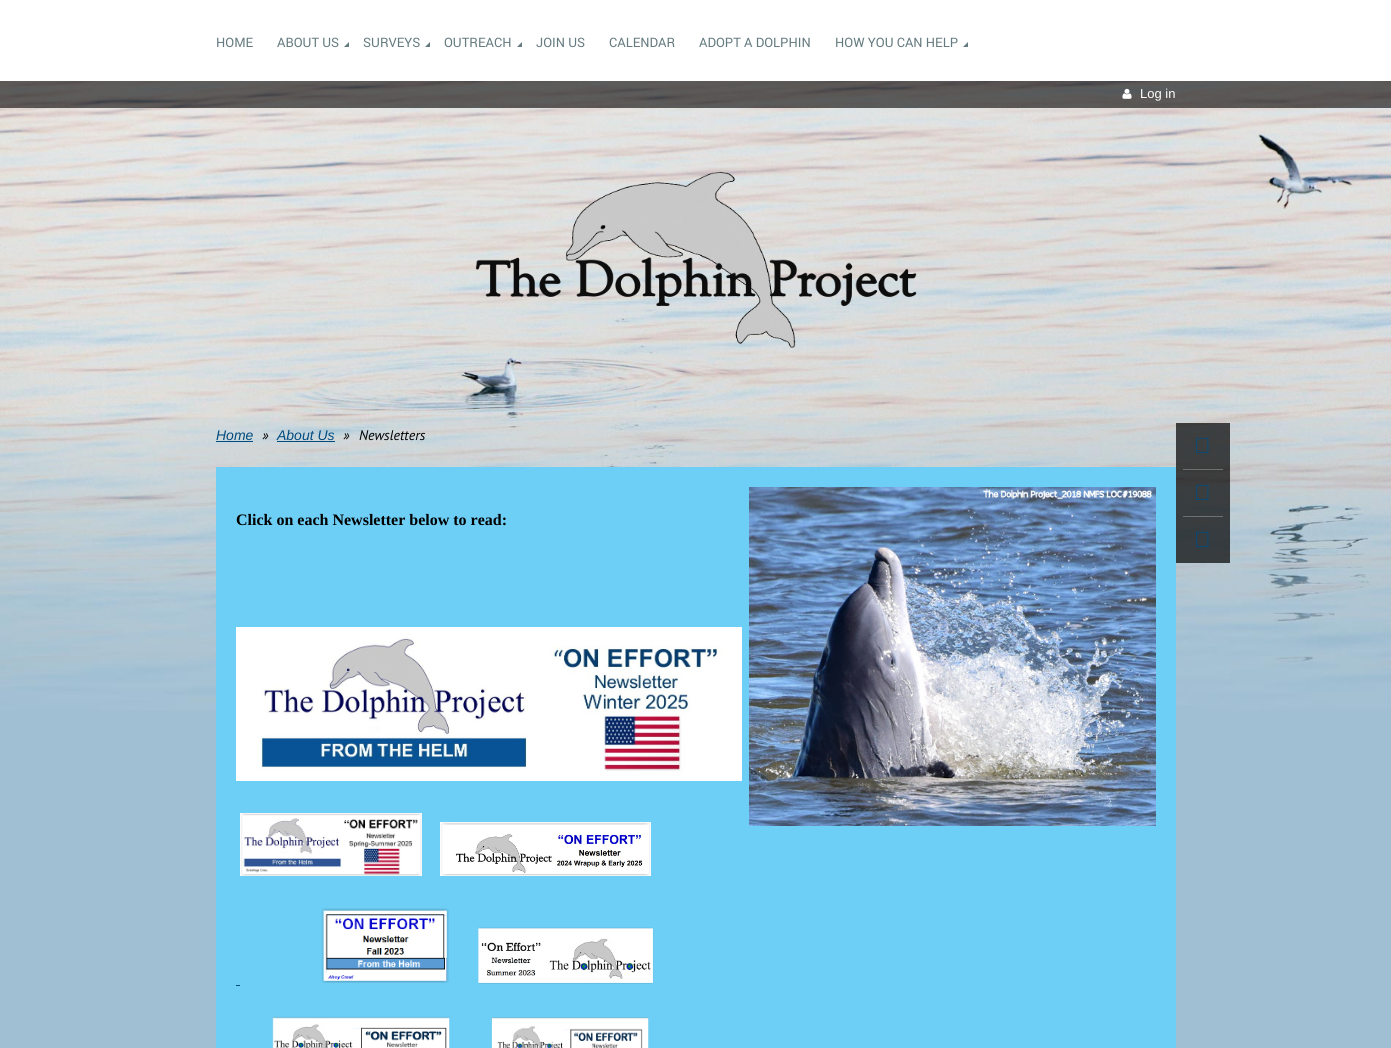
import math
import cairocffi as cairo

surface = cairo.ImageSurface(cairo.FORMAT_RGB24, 1391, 1048)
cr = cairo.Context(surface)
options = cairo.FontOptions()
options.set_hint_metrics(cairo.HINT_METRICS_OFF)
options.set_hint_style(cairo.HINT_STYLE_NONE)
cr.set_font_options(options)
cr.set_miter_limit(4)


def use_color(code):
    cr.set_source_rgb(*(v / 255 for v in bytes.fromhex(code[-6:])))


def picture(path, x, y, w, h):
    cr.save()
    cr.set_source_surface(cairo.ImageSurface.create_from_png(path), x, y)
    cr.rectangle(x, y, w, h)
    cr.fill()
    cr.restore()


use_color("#a0bfd3")
cr.paint()
picture("img1.png", 0, 81, 1391, 629)
use_color("#ffffff")
cr.rectangle(0, 0, 1391, 81)
cr.fill()
cr.select_font_face("Roboto")
cr.set_font_size(13)
use_color("#657b80")
cr.move_to(216, 47)
cr.show_text("HOME")
cr.move_to(277, 47)
cr.show_text("ABOUT US")
cr.new_path()
cr.move_to(349, 47)
cr.line_to(344, 47)
cr.line_to(349, 42)
cr.close_path()
cr.fill()
cr.move_to(363, 47)
cr.show_text("SURVEYS")
cr.new_path()
cr.move_to(430, 47)
cr.line_to(425, 47)
cr.line_to(430, 42)
cr.close_path()
cr.fill()
cr.move_to(444, 47)
cr.show_text("OUTREACH")
cr.new_path()
cr.move_to(522, 47)
cr.line_to(517, 47)
cr.line_to(522, 42)
cr.close_path()
cr.fill()
cr.move_to(536, 47)
cr.show_text("JOIN US")
cr.move_to(609, 47)
cr.show_text("CALENDAR")
cr.move_to(699, 47)
cr.show_text("ADOPT A DOLPHIN")
cr.move_to(835, 47)
cr.show_text("HOW YOU CAN HELP")
cr.new_path()
cr.move_to(968, 47)
cr.line_to(963, 47)
cr.line_to(968, 42)
cr.close_path()
cr.fill()
cr.set_source_rgba(0, 0, 0, 0.6)
cr.rectangle(0, 81, 1391, 27)
cr.fill()
picture("img2.png", 1122, 88, 10, 11)
cr.select_font_face("Liberation Sans")
use_color("#ffffff")
cr.move_to(1140, 98)
cr.show_text("Log in")
picture("img3.png", 475, 172, 442, 176)
cr.select_font_face("Liberation Sans", cairo.FONT_SLANT_ITALIC)
cr.set_font_size(14)
use_color("#004b80")
cr.move_to(216, 440)
cr.show_text("Home")
cr.rectangle(216, 441, 37, 1)
cr.fill()
cr.select_font_face("PT Sans", cairo.FONT_SLANT_ITALIC)
use_color("#000000")
cr.move_to(262, 440)
cr.show_text("»")
cr.select_font_face("Liberation Sans", cairo.FONT_SLANT_ITALIC)
use_color("#004b80")
cr.move_to(277, 440)
cr.show_text("About Us")
cr.rectangle(277, 441, 58, 1)
cr.fill()
cr.select_font_face("PT Sans", cairo.FONT_SLANT_ITALIC)
use_color("#000000")
cr.move_to(343, 440)
cr.show_text("»")
cr.move_to(359, 440)
cr.show_text("Newsletters")
cr.set_source_rgba(0, 0, 0, 0.7)
cr.rectangle(1176, 423, 54, 140)
cr.fill()
use_color("#6d7173")
cr.rectangle(1183, 469, 40, 1)
cr.fill()
picture("img4.png", 1196, 437, 13, 16)
cr.rectangle(1183, 516, 40, 1)
cr.fill()
picture("img5.png", 1196, 484, 13, 16)
picture("img6.png", 1196, 531, 13, 16)
use_color("#6ecff6")
cr.rectangle(216, 467, 960, 581)
cr.fill()
cr.select_font_face("Liberation Serif", cairo.FONT_SLANT_NORMAL, cairo.FONT_WEIGHT_BOLD)
cr.set_font_size(16)
use_color("#000000")
cr.move_to(236, 525)
cr.show_text("Click on each Newsletter below to read:")
picture("img7.png", 236, 627, 506, 154)
picture("img8.png", 240, 813, 182, 63)
picture("img9.png", 440, 822, 211, 54)
picture("img10.png", 321, 908, 128, 75)
picture("img11.png", 478, 927, 176, 57)
use_color("#004b80")
cr.rectangle(236, 985, 4, 1)
cr.fill()
picture("img12.png", 272, 1016, 178, 32)
picture("img13.png", 491, 1017, 158, 31)
picture("img14.png", 749, 487, 407, 339)
surface.write_to_png("result.png")
